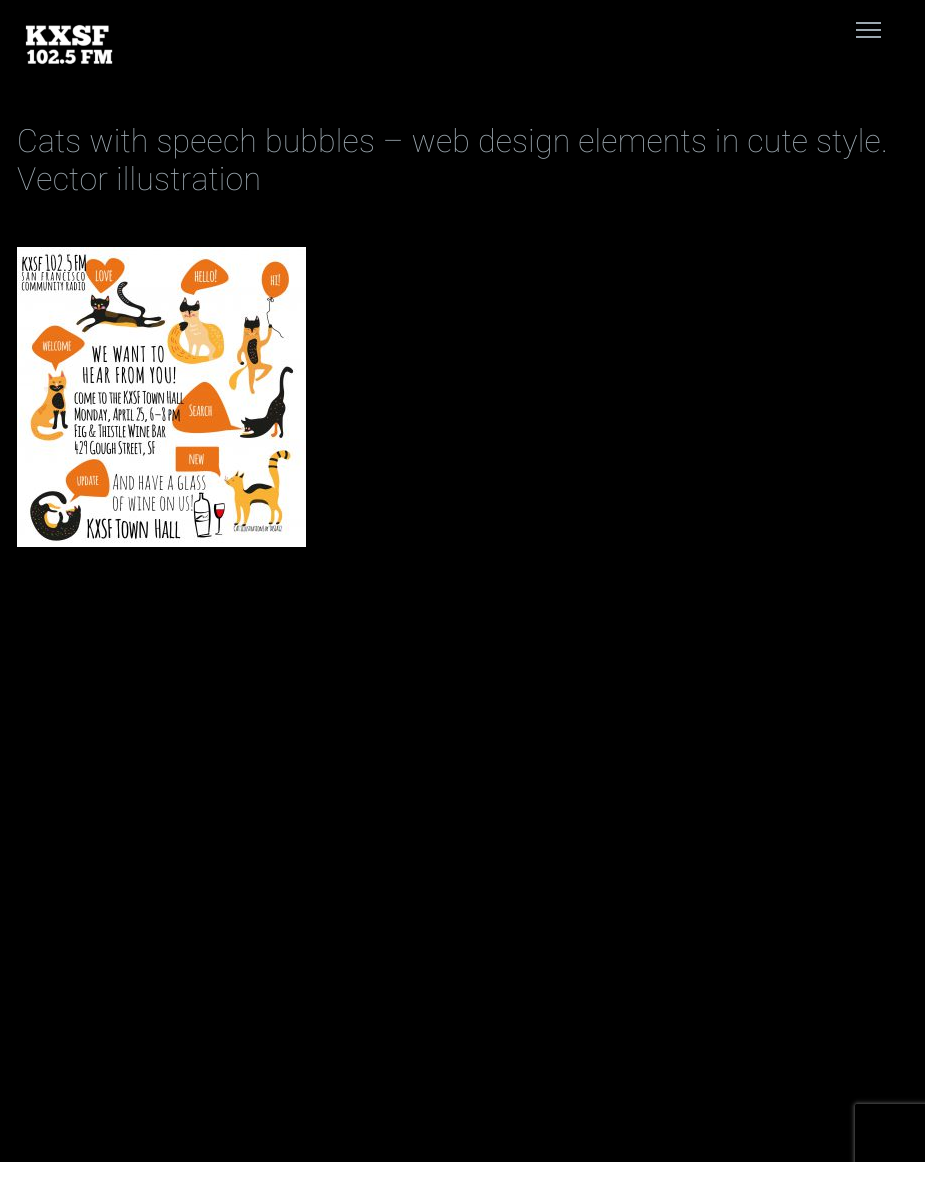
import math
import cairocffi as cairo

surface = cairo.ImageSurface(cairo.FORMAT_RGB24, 925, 1178)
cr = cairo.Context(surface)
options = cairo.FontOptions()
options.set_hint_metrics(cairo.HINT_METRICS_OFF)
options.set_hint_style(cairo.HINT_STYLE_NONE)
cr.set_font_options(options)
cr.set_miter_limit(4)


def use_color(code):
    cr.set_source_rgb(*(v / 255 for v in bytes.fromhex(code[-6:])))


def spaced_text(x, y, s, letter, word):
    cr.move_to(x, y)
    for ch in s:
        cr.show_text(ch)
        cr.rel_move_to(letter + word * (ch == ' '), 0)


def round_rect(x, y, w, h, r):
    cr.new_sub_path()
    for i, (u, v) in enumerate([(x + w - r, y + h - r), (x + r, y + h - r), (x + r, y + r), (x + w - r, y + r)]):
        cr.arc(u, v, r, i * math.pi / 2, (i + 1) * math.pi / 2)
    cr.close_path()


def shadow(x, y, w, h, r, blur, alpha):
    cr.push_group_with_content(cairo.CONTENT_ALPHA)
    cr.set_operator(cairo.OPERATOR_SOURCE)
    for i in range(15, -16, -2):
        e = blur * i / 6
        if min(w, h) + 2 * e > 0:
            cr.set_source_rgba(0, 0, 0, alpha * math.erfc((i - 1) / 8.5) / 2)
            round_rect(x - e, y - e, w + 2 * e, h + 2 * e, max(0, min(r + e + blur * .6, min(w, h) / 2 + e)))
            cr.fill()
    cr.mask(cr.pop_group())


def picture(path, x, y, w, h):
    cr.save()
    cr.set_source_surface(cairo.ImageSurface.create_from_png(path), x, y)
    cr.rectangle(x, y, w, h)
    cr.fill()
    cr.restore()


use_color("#000000")
cr.paint()
picture("img1.png", 25, 24, 88, 41)
use_color("#9ca8b0")
cr.rectangle(856, 29, 25, 2)
cr.fill()
cr.rectangle(856, 22, 25, 2)
cr.fill()
cr.rectangle(856, 36, 25, 2)
cr.fill()
cr.select_font_face("Roboto Thin")
cr.set_font_size(32)
spaced_text(17, 152, "Cats with speech bubbles – web design elements in cute style.", 0.2, 0)
spaced_text(17, 190, "Vector illustration", 0.2, 0)
picture("img2.png", 17, 247, 289, 300)
cr.save()
cr.set_fill_rule(cairo.FILL_RULE_EVEN_ODD)
cr.new_path()
cr.move_to(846, 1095)
cr.line_to(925, 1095)
cr.line_to(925, 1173)
cr.line_to(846, 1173)
cr.close_path()
cr.move_to(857, 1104)
cr.line_to(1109, 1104)
cr.curve_to(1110, 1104, 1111, 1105, 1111, 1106)
cr.line_to(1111, 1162)
cr.curve_to(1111, 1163, 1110, 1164, 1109, 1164)
cr.line_to(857, 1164)
cr.curve_to(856, 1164, 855, 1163, 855, 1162)
cr.line_to(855, 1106)
cr.curve_to(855, 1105, 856, 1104, 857, 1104)
cr.close_path()
cr.clip()
use_color("#808080")
shadow(855, 1104, 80, 60, 2, 2.5, 1)
cr.restore()
use_color("#ffffff")
cr.rectangle(0, 1162, 925, 16)
cr.fill()
surface.write_to_png("result.png")
